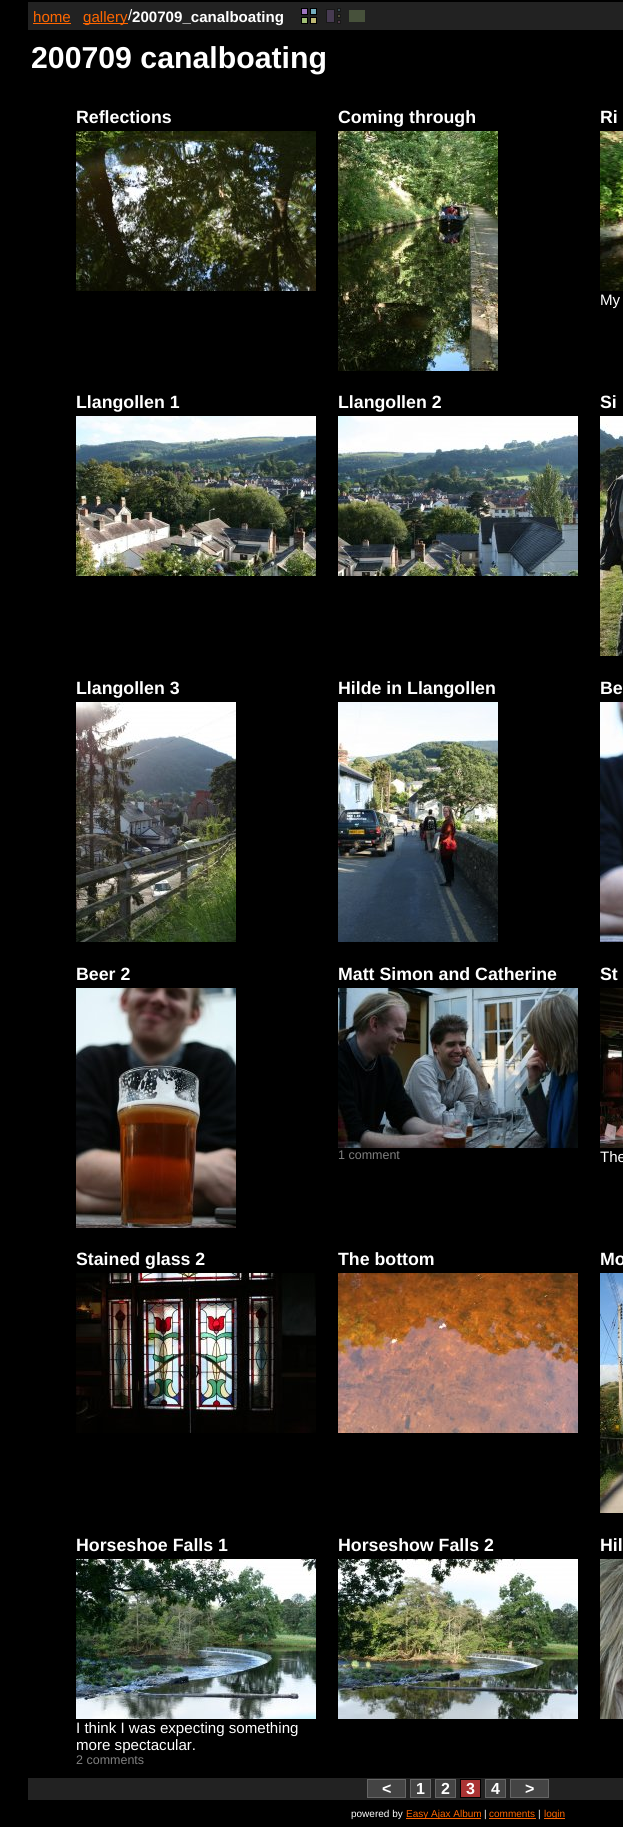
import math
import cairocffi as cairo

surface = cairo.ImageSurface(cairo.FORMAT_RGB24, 623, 1827)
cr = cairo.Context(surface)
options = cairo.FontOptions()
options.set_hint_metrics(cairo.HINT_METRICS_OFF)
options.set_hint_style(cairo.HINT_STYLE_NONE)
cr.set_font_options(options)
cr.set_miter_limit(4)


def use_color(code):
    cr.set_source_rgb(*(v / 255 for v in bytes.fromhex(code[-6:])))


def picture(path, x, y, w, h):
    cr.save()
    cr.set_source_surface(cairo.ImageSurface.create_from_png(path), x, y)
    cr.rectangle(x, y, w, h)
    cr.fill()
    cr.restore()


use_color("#000000")
cr.paint()
use_color("#222222")
cr.rectangle(28, 2, 595, 28)
cr.fill()
cr.select_font_face("Liberation Sans")
cr.set_font_size(15.1)
use_color("#ff6600")
cr.move_to(33, 22)
cr.show_text("home")
cr.rectangle(33, 23, 38, 1)
cr.fill()
cr.rectangle(83, 23, 45, 1)
cr.fill()
cr.move_to(83, 22)
cr.show_text("gallery")
use_color("#ffffff")
cr.move_to(128, 20)
cr.show_text("/")
cr.select_font_face("Liberation Sans", cairo.FONT_SLANT_NORMAL, cairo.FONT_WEIGHT_BOLD)
cr.move_to(132, 22)
cr.show_text("200709_canalboating")
picture("img1.png", 301, 8, 16, 16)
picture("img2.png", 326, 8, 15, 16)
use_color("#47513b")
cr.rectangle(349, 10, 16, 12)
cr.fill()
cr.set_font_size(30.25)
use_color("#ffffff")
cr.move_to(31, 68)
cr.show_text("200709 canalboating")
cr.set_font_size(17.75)
cr.move_to(76, 123)
cr.show_text("Reflections")
picture("img3.png", 76, 131, 240, 160)
cr.move_to(338, 123)
cr.show_text("Coming through")
picture("img4.png", 338, 131, 160, 240)
cr.move_to(600, 123)
cr.show_text("Ri")
picture("img5.png", 600, 131, 23, 160)
cr.select_font_face("Liberation Sans")
cr.set_font_size(15.1)
cr.move_to(600, 305)
cr.show_text("My")
cr.select_font_face("Liberation Sans", cairo.FONT_SLANT_NORMAL, cairo.FONT_WEIGHT_BOLD)
cr.set_font_size(17.75)
cr.move_to(76, 408)
cr.show_text("Llangollen 1")
picture("img6.png", 76, 416, 240, 160)
cr.move_to(338, 408)
cr.show_text("Llangollen 2")
picture("img7.png", 338, 416, 240, 160)
cr.move_to(600, 408)
cr.show_text("Si")
picture("img8.png", 600, 416, 23, 240)
cr.move_to(76, 694)
cr.show_text("Llangollen 3")
picture("img9.png", 76, 702, 160, 240)
cr.move_to(338, 694)
cr.show_text("Hilde in Llangollen")
picture("img10.png", 338, 702, 160, 240)
cr.move_to(600, 694)
cr.show_text("Be")
picture("img11.png", 600, 702, 23, 240)
cr.move_to(76, 980)
cr.show_text("Beer 2")
picture("img12.png", 76, 988, 160, 240)
cr.move_to(338, 980)
cr.show_text("Matt Simon and Catherine")
picture("img13.png", 338, 988, 240, 160)
cr.select_font_face("Liberation Sans")
cr.set_font_size(12.5)
use_color("#808080")
cr.move_to(338, 1159)
cr.show_text("1 comment")
cr.select_font_face("Liberation Sans", cairo.FONT_SLANT_NORMAL, cairo.FONT_WEIGHT_BOLD)
cr.set_font_size(17.75)
use_color("#ffffff")
cr.move_to(600, 980)
cr.show_text("St")
picture("img14.png", 600, 988, 23, 160)
cr.select_font_face("Liberation Sans")
cr.set_font_size(15.1)
cr.move_to(600, 1162)
cr.show_text("The")
cr.select_font_face("Liberation Sans", cairo.FONT_SLANT_NORMAL, cairo.FONT_WEIGHT_BOLD)
cr.set_font_size(17.75)
cr.move_to(76, 1265)
cr.show_text("Stained glass 2")
picture("img15.png", 76, 1273, 240, 160)
cr.move_to(338, 1265)
cr.show_text("The bottom")
picture("img16.png", 338, 1273, 240, 160)
cr.move_to(600, 1265)
cr.show_text("Mo")
picture("img17.png", 600, 1273, 23, 240)
cr.move_to(76, 1551)
cr.show_text("Horseshoe Falls 1")
picture("img18.png", 76, 1559, 240, 160)
cr.select_font_face("Liberation Sans")
cr.set_font_size(15.1)
cr.move_to(76, 1733)
cr.show_text("I think I was expecting something")
cr.move_to(76, 1750)
cr.show_text("more spectacular.")
cr.set_font_size(12.5)
use_color("#808080")
cr.move_to(76, 1764)
cr.show_text("2 comments")
cr.select_font_face("Liberation Sans", cairo.FONT_SLANT_NORMAL, cairo.FONT_WEIGHT_BOLD)
cr.set_font_size(17.75)
use_color("#ffffff")
cr.move_to(338, 1551)
cr.show_text("Horseshow Falls 2")
picture("img19.png", 338, 1559, 240, 160)
cr.move_to(600, 1551)
cr.show_text("Hil")
picture("img20.png", 600, 1559, 23, 160)
use_color("#222222")
cr.rectangle(28, 1778, 595, 22)
cr.fill()
use_color("#444444")
cr.rectangle(367.5, 1779.5, 38, 18)
cr.fill_preserve()
use_color("#666666")
cr.set_line_width(1)
cr.stroke()
cr.set_font_size(16)
use_color("#ffffff")
cr.move_to(382, 1794)
cr.show_text("<")
use_color("#444444")
cr.rectangle(410.5, 1779.5, 20, 18)
cr.fill_preserve()
use_color("#666666")
cr.stroke()
use_color("#ffffff")
cr.move_to(416, 1794)
cr.show_text("1")
use_color("#444444")
cr.rectangle(435.5, 1779.5, 20, 18)
cr.fill_preserve()
use_color("#666666")
cr.stroke()
use_color("#ffffff")
cr.move_to(441, 1794)
cr.show_text("2")
use_color("#aa3333")
cr.rectangle(460.5, 1779.5, 20, 18)
cr.fill_preserve()
use_color("#000000")
cr.stroke()
use_color("#ffffff")
cr.move_to(466, 1794)
cr.show_text("3")
use_color("#444444")
cr.rectangle(485.5, 1779.5, 20, 18)
cr.fill_preserve()
use_color("#666666")
cr.stroke()
use_color("#ffffff")
cr.move_to(491, 1794)
cr.show_text("4")
use_color("#444444")
cr.rectangle(510.5, 1779.5, 38, 18)
cr.fill_preserve()
use_color("#666666")
cr.stroke()
use_color("#ffffff")
cr.move_to(525, 1794)
cr.show_text(">")
cr.select_font_face("Liberation Sans")
cr.set_font_size(10)
cr.move_to(351, 1817)
cr.show_text("powered by")
use_color("#ff6600")
cr.rectangle(406, 1818, 75, 1)
cr.fill()
cr.move_to(406, 1817)
cr.show_text("Easy Ajax Album")
use_color("#ffffff")
cr.move_to(484, 1817)
cr.show_text("|")
use_color("#ff6600")
cr.move_to(489, 1817)
cr.show_text("comments")
cr.rectangle(489, 1818, 47, 1)
cr.fill()
use_color("#ffffff")
cr.move_to(538, 1817)
cr.show_text("|")
use_color("#ff6600")
cr.rectangle(544, 1818, 21, 1)
cr.fill()
cr.move_to(544, 1817)
cr.show_text("login")
surface.write_to_png("result.png")
